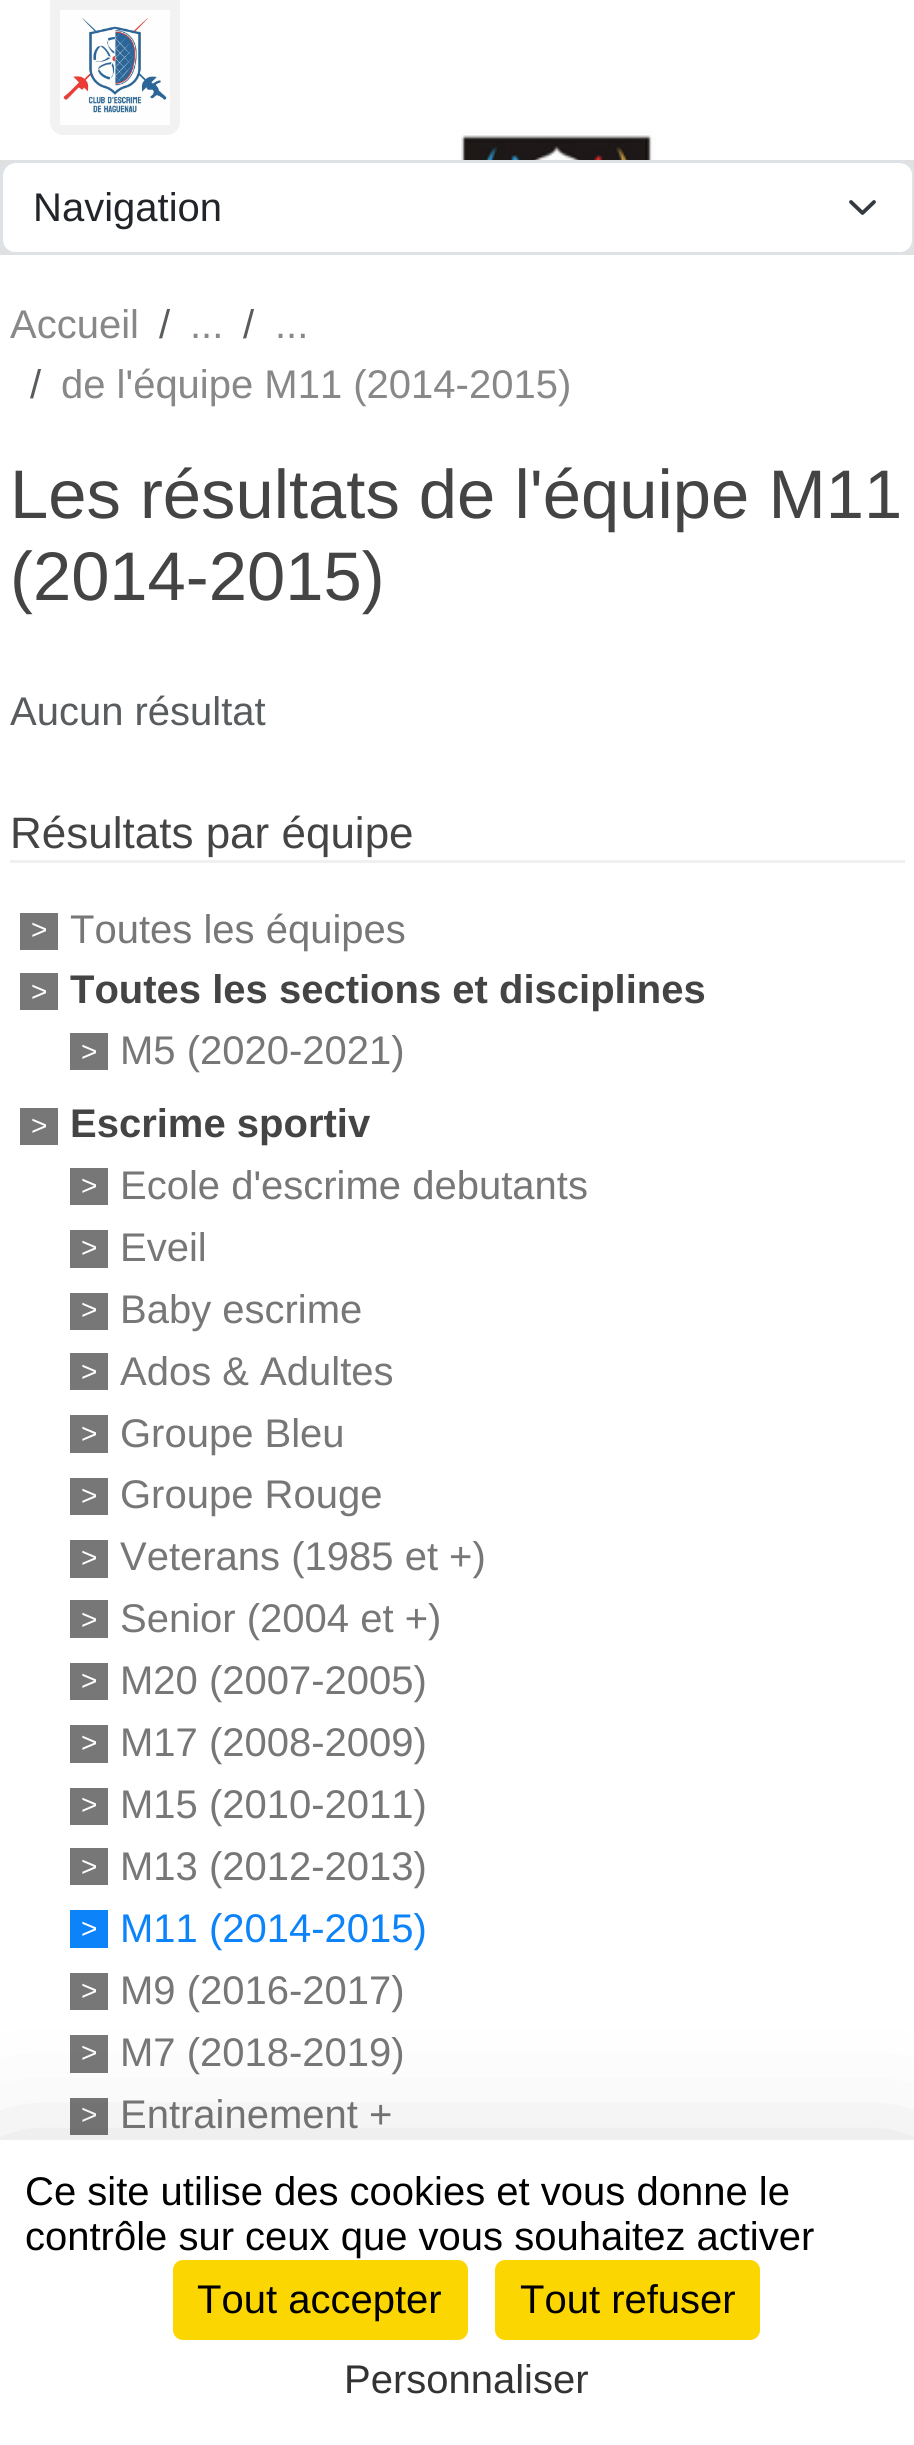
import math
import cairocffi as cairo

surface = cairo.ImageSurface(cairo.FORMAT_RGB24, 914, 2445)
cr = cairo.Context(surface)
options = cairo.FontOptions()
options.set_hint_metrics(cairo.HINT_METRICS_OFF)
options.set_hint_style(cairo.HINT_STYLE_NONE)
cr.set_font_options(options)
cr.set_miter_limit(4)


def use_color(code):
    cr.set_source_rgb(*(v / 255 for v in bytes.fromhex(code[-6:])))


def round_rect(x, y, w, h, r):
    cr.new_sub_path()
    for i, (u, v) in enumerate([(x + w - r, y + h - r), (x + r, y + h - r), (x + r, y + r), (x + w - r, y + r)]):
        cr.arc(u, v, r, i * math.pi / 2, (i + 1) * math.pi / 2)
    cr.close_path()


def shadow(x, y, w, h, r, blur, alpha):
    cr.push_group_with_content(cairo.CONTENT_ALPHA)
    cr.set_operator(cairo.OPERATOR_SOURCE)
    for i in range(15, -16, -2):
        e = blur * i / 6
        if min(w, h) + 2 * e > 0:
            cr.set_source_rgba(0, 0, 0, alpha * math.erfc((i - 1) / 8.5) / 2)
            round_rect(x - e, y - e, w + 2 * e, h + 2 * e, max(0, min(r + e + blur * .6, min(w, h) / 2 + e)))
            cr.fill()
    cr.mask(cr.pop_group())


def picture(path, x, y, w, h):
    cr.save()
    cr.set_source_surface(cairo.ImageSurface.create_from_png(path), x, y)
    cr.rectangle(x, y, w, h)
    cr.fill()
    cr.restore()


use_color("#ffffff")
cr.paint()
picture("img2.png", 0, 0, 914, 160)
use_color("#f2f2f2")
cr.new_path()
cr.move_to(50, 0)
cr.line_to(180, 0)
cr.line_to(180, 122)
cr.curve_to(180, 129, 174, 135, 167, 135)
cr.line_to(63, 135)
cr.curve_to(56, 135, 50, 129, 50, 122)
cr.close_path()
cr.fill()
picture("img1.png", 60, 10, 110, 115)
use_color("#e0e0e0")
cr.rectangle(0, 160, 914, 95)
cr.fill()
use_color("#ffffff")
round_rect(3, 163, 910, 90, 13)
cr.fill()
cr.new_path()
cr.move_to(851, 202)
cr.line_to(862.5, 213)
cr.line_to(874, 202)
use_color("#343a40")
cr.set_line_width(3.8)
cr.set_line_cap(cairo.LINE_CAP_ROUND)
cr.set_line_join(cairo.LINE_JOIN_ROUND)
cr.stroke()
round_rect(1.5, 161.5, 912, 92, 13.5)
use_color("#dee2e6")
cr.set_line_width(3)
cr.set_line_cap(cairo.LINE_CAP_BUTT)
cr.set_line_join(cairo.LINE_JOIN_MITER)
cr.stroke()
cr.select_font_face("Liberation Sans")
cr.set_font_size(40)
use_color("#212529")
cr.move_to(33, 221)
cr.show_text("Navigation")
use_color("#888888")
cr.move_to(10, 338)
cr.show_text("Accueil")
use_color("#595c5f")
cr.move_to(159, 338)
cr.show_text("/")
use_color("#888888")
cr.move_to(190, 338)
cr.show_text("...")
use_color("#595c5f")
cr.move_to(243, 338)
cr.show_text("/")
use_color("#888888")
cr.move_to(275, 338)
cr.show_text("...")
use_color("#595c5f")
cr.move_to(30, 398)
cr.show_text("/")
use_color("#888888")
cr.move_to(61, 398)
cr.show_text("de l'équipe M11 (2014-2015)")
cr.set_font_size(68.75)
use_color("#444444")
cr.move_to(10, 518)
cr.show_text("Les résultats de l'équipe M11")
cr.move_to(10, 600)
cr.show_text("(2014-2015)")
cr.set_font_size(40)
use_color("#595c5f")
cr.move_to(10, 725)
cr.show_text("Aucun résultat")
use_color("#f0f0f0")
cr.rectangle(10, 860, 895, 3)
cr.fill()
cr.set_font_size(44)
use_color("#444444")
cr.move_to(10, 848)
cr.show_text("Résultats par équipe")
use_color("#777777")
cr.rectangle(20, 913, 38, 37)
cr.fill()
cr.set_font_size(28)
use_color("#ffffff")
cr.move_to(31, 939)
cr.show_text(">")
cr.set_font_size(40)
use_color("#777777")
cr.move_to(70, 943)
cr.show_text("Toutes les équipes")
cr.rectangle(20, 973, 38, 37)
cr.fill()
cr.set_font_size(28)
use_color("#ffffff")
cr.move_to(31, 1001)
cr.show_text(">")
cr.select_font_face("Liberation Sans", cairo.FONT_SLANT_NORMAL, cairo.FONT_WEIGHT_BOLD)
cr.set_font_size(40)
use_color("#444444")
cr.move_to(70, 1003)
cr.show_text("Toutes les sections et disciplines")
use_color("#777777")
cr.rectangle(70, 1033, 38, 37)
cr.fill()
cr.select_font_face("Liberation Sans")
cr.set_font_size(28)
use_color("#ffffff")
cr.move_to(81, 1061)
cr.show_text(">")
cr.set_font_size(40)
use_color("#777777")
cr.move_to(120, 1064)
cr.show_text("M5 (2020-2021)")
cr.rectangle(20, 1108, 38, 37)
cr.fill()
cr.set_font_size(28)
use_color("#ffffff")
cr.move_to(31, 1135)
cr.show_text(">")
cr.select_font_face("Liberation Sans", cairo.FONT_SLANT_NORMAL, cairo.FONT_WEIGHT_BOLD)
cr.set_font_size(40)
use_color("#444444")
cr.move_to(70, 1137)
cr.show_text("Escrime sportiv")
use_color("#777777")
cr.rectangle(70, 1168, 38, 37)
cr.fill()
cr.select_font_face("Liberation Sans")
cr.set_font_size(28)
use_color("#ffffff")
cr.move_to(81, 1195)
cr.show_text(">")
cr.set_font_size(40)
use_color("#777777")
cr.move_to(120, 1199)
cr.show_text("Ecole d'escrime debutants")
cr.rectangle(70, 1230, 38, 38)
cr.fill()
cr.set_font_size(28)
use_color("#ffffff")
cr.move_to(81, 1257)
cr.show_text(">")
cr.set_font_size(40)
use_color("#777777")
cr.move_to(120, 1261)
cr.show_text("Eveil")
cr.rectangle(70, 1293, 38, 37)
cr.fill()
cr.set_font_size(28)
use_color("#ffffff")
cr.move_to(81, 1319)
cr.show_text(">")
cr.set_font_size(40)
use_color("#777777")
cr.move_to(120, 1323)
cr.show_text("Baby escrime")
cr.rectangle(70, 1353, 38, 37)
cr.fill()
cr.set_font_size(28)
use_color("#ffffff")
cr.move_to(81, 1381)
cr.show_text(">")
cr.set_font_size(40)
use_color("#777777")
cr.move_to(120, 1385)
cr.show_text("Ados & Adultes")
cr.rectangle(70, 1415, 38, 38)
cr.fill()
cr.set_font_size(28)
use_color("#ffffff")
cr.move_to(81, 1443)
cr.show_text(">")
cr.set_font_size(40)
use_color("#777777")
cr.move_to(120, 1447)
cr.show_text("Groupe Bleu")
cr.rectangle(70, 1478, 38, 37)
cr.fill()
cr.set_font_size(28)
use_color("#ffffff")
cr.move_to(81, 1505)
cr.show_text(">")
cr.set_font_size(40)
use_color("#777777")
cr.move_to(120, 1508)
cr.show_text("Groupe Rouge")
cr.rectangle(70, 1540, 38, 38)
cr.fill()
cr.set_font_size(28)
use_color("#ffffff")
cr.move_to(81, 1567)
cr.show_text(">")
cr.set_font_size(40)
use_color("#777777")
cr.move_to(120, 1570)
cr.show_text("Veterans (1985 et +)")
cr.rectangle(70, 1600, 38, 38)
cr.fill()
cr.set_font_size(28)
use_color("#ffffff")
cr.move_to(81, 1629)
cr.show_text(">")
cr.set_font_size(40)
use_color("#777777")
cr.move_to(120, 1632)
cr.show_text("Senior (2004 et +)")
cr.rectangle(70, 1663, 38, 37)
cr.fill()
cr.set_font_size(28)
use_color("#ffffff")
cr.move_to(81, 1690)
cr.show_text(">")
cr.set_font_size(40)
use_color("#777777")
cr.move_to(120, 1694)
cr.show_text("M20 (2007-2005)")
cr.rectangle(70, 1725, 38, 38)
cr.fill()
cr.set_font_size(28)
use_color("#ffffff")
cr.move_to(81, 1752)
cr.show_text(">")
cr.set_font_size(40)
use_color("#777777")
cr.move_to(120, 1756)
cr.show_text("M17 (2008-2009)")
cr.rectangle(70, 1788, 38, 37)
cr.fill()
cr.set_font_size(28)
use_color("#ffffff")
cr.move_to(81, 1814)
cr.show_text(">")
cr.set_font_size(40)
use_color("#777777")
cr.move_to(120, 1818)
cr.show_text("M15 (2010-2011)")
cr.rectangle(70, 1848, 38, 37)
cr.fill()
cr.set_font_size(28)
use_color("#ffffff")
cr.move_to(81, 1876)
cr.show_text(">")
cr.set_font_size(40)
use_color("#777777")
cr.move_to(120, 1880)
cr.show_text("M13 (2012-2013)")
use_color("#0c83f8")
cr.rectangle(70, 1910, 38, 38)
cr.fill()
cr.set_font_size(28)
use_color("#ffffff")
cr.move_to(81, 1938)
cr.show_text(">")
cr.set_font_size(40)
use_color("#0c83f8")
cr.move_to(120, 1942)
cr.show_text("M11 (2014-2015)")
use_color("#777777")
cr.rectangle(70, 1973, 38, 37)
cr.fill()
cr.set_font_size(28)
use_color("#ffffff")
cr.move_to(81, 2000)
cr.show_text(">")
cr.set_font_size(40)
use_color("#777777")
cr.move_to(120, 2004)
cr.show_text("M9 (2016-2017)")
cr.rectangle(70, 2035, 38, 38)
cr.fill()
cr.set_font_size(28)
use_color("#ffffff")
cr.move_to(81, 2062)
cr.show_text(">")
cr.set_font_size(40)
use_color("#777777")
cr.move_to(120, 2066)
cr.show_text("M7 (2018-2019)")
cr.rectangle(70, 2098, 38, 37)
cr.fill()
cr.set_font_size(28)
use_color("#ffffff")
cr.move_to(81, 2124)
cr.show_text(">")
cr.set_font_size(40)
use_color("#777777")
cr.move_to(120, 2128)
cr.show_text("Entrainement +")
use_color("#000000")
shadow(0, 2190, 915, 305, 0, 75, 0.25)
use_color("#ffffff")
cr.rectangle(0, 2140, 914, 305)
cr.fill()
use_color("#000000")
cr.move_to(25, 2205)
cr.show_text("Ce site utilise des cookies et vous donne le")
cr.move_to(25, 2250)
cr.show_text("contrôle sur ceux que vous souhaitez activer")
use_color("#fbd600")
round_rect(173, 2260, 295, 80, 10)
cr.fill()
use_color("#000000")
cr.move_to(197, 2313)
cr.show_text("Tout accepter")
use_color("#fbd600")
round_rect(495, 2260, 265, 80, 10)
cr.fill()
use_color("#000000")
cr.move_to(520, 2313)
cr.show_text("Tout refuser")
use_color("#333333")
cr.move_to(344, 2393)
cr.show_text("Personnaliser")
surface.write_to_png("result.png")
